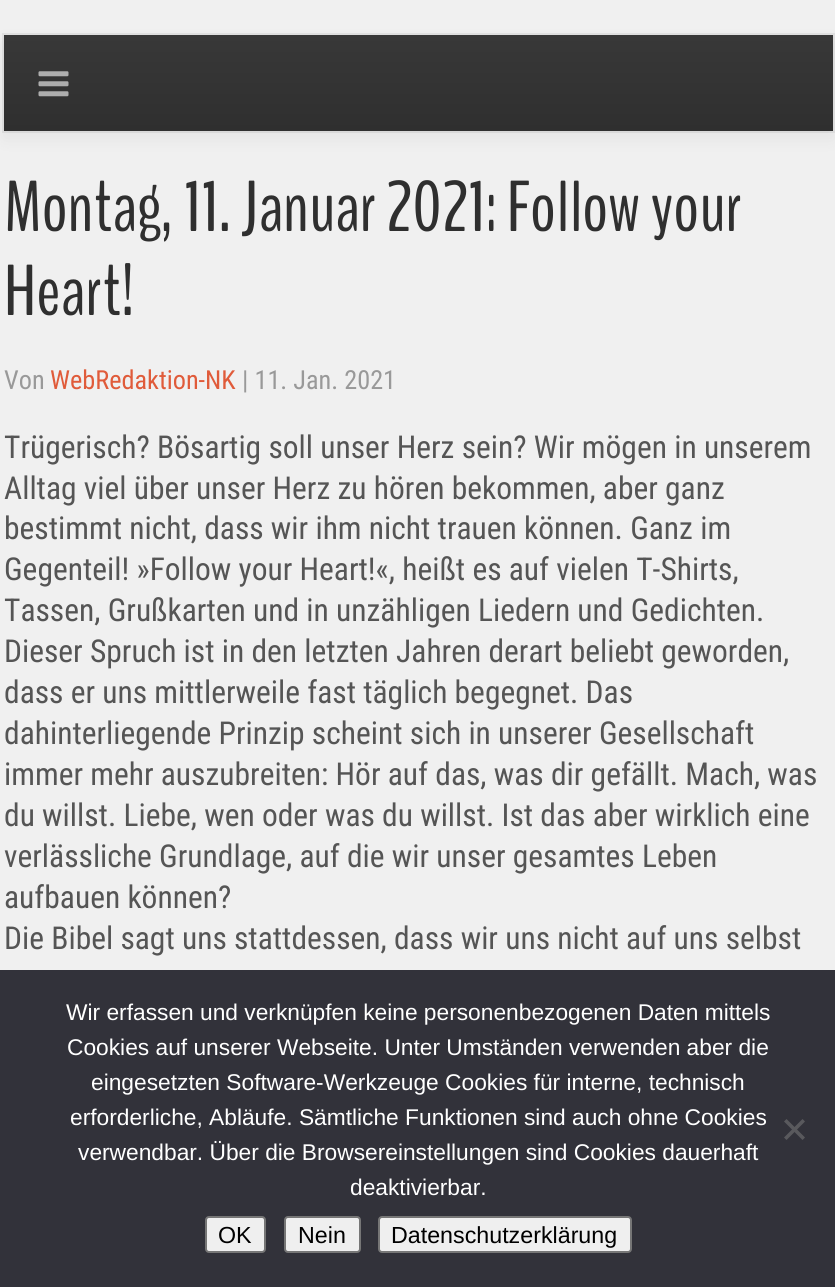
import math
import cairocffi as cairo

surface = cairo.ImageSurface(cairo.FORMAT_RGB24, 835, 1287)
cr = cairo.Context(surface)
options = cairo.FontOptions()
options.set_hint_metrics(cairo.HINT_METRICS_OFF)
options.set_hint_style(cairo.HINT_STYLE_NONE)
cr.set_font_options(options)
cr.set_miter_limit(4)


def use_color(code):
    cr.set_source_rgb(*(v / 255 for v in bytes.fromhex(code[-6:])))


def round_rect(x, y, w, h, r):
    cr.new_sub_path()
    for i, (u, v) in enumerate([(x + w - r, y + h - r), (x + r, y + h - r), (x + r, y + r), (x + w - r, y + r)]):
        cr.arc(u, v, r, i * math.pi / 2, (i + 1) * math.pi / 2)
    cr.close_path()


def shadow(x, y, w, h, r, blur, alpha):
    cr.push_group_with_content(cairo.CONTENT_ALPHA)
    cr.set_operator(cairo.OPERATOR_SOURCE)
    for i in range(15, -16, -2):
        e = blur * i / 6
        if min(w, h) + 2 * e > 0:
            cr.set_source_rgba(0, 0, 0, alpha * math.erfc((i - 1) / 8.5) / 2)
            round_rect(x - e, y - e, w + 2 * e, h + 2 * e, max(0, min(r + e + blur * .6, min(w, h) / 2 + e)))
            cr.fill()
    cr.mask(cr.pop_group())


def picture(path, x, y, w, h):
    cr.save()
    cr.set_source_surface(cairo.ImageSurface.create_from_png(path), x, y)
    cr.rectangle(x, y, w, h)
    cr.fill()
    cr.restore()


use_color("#f0f0f0")
cr.paint()
use_color("#000000")
shadow(4, 42, 829, 96, 0, 9, 0.06)
cr.rectangle(3, 34, 831, 98)
cr.set_source_rgba(0, 0, 0, 0.06)
cr.stroke()
gradient = cairo.LinearGradient(418, 35, 418, 131)
gradient.add_color_stop_rgba(0, 0.22, 0.22, 0.22, 1)
gradient.add_color_stop_rgba(1, 0.184, 0.184, 0.184, 1)
cr.set_source(gradient)
cr.rectangle(4, 35, 829, 96)
cr.fill()
picture("img1.png", 38, 71, 31, 26)
cr.select_font_face("BenchNine")
cr.set_font_size(71.75)
use_color("#2f2f2f")
cr.move_to(4, 231)
cr.show_text("Montag, 11. Januar 2021: Follow your")
cr.move_to(4, 315)
cr.show_text("Heart!")
cr.select_font_face("Roboto Condensed")
cr.set_font_size(26.25)
use_color("#999999")
cr.move_to(4, 389)
cr.show_text("Von")
use_color("#e05b3a")
cr.move_to(50, 389)
cr.show_text("WebRedaktion-NK")
use_color("#999999")
cr.move_to(242, 389)
cr.show_text("| 11. Jan. 2021")
cr.set_font_size(31.5)
use_color("#555555")
cr.move_to(4, 458)
cr.show_text("Trügerisch? Bösartig soll unser Herz sein? Wir mögen in unserem")
cr.move_to(4, 499)
cr.show_text("Alltag viel über unser Herz zu hören bekommen, aber ganz")
cr.move_to(4, 539)
cr.show_text("bestimmt nicht, dass wir ihm nicht trauen können. Ganz im")
cr.move_to(4, 580)
cr.show_text("Gegenteil! »Follow your Heart!«, heißt es auf vielen T-Shirts,")
cr.move_to(4, 621)
cr.show_text("Tassen, Grußkarten und in unzähligen Liedern und Gedichten.")
cr.move_to(4, 662)
cr.show_text("Dieser Spruch ist in den letzten Jahren derart beliebt geworden,")
cr.move_to(4, 703)
cr.show_text("dass er uns mittlerweile fast täglich begegnet. Das")
cr.move_to(4, 744)
cr.show_text("dahinterliegende Prinzip scheint sich in unserer Gesellschaft")
cr.move_to(4, 785)
cr.show_text("immer mehr auszubreiten: Hör auf das, was dir gefällt. Mach, was")
cr.move_to(4, 826)
cr.show_text("du willst. Liebe, wen oder was du willst. Ist das aber wirklich eine")
cr.move_to(4, 867)
cr.show_text("verlässliche Grundlage, auf die wir unser gesamtes Leben")
cr.move_to(4, 908)
cr.show_text("aufbauen können?")
cr.move_to(4, 949)
cr.show_text("Die Bibel sagt uns stattdessen, dass wir uns nicht auf uns selbst")
use_color("#32323a")
cr.rectangle(0, 970, 835, 317)
cr.fill()
cr.select_font_face("Liberation Sans")
cr.set_font_size(22.75)
use_color("#ffffff")
cr.move_to(66, 1020)
cr.show_text("Wir erfassen und verknüpfen keine personenbezogenen Daten mittels")
cr.move_to(67, 1055)
cr.show_text("Cookies auf unserer Webseite. Unter Umständen verwenden aber die")
cr.move_to(91, 1090)
cr.show_text("eingesetzten Software-Werkzeuge Cookies für interne, technisch")
cr.move_to(70, 1125)
cr.show_text("erforderliche, Abläufe. Sämtliche Funktionen sind auch ohne Cookies")
cr.move_to(78, 1160)
cr.show_text("verwendbar. Über die Browsereinstellungen sind Cookies dauerhaft")
cr.move_to(350, 1195)
cr.show_text("deaktivierbar.")
use_color("#59595d")
cr.new_path()
cr.move_to(802.5, 1119)
cr.line_to(805, 1121.5)
cr.line_to(786.5, 1140)
cr.line_to(784, 1137.5)
cr.close_path()
cr.fill()
cr.new_path()
cr.move_to(784, 1121.5)
cr.line_to(786.5, 1119)
cr.line_to(805, 1137.5)
cr.line_to(802.5, 1140)
cr.close_path()
cr.fill()
use_color("#efefef")
round_rect(206, 1217, 59, 35, 3)
cr.fill_preserve()
use_color("#767676")
cr.stroke()
cr.set_font_size(23.25)
use_color("#000000")
cr.move_to(218, 1243)
cr.show_text("OK")
use_color("#efefef")
round_rect(285, 1217, 75, 35, 3)
cr.fill_preserve()
use_color("#767676")
cr.stroke()
use_color("#000000")
cr.move_to(298, 1243)
cr.show_text("Nein")
use_color("#efefef")
round_rect(379, 1217, 252, 35, 3)
cr.fill_preserve()
use_color("#767676")
cr.stroke()
use_color("#000000")
cr.move_to(391, 1243)
cr.show_text("Datenschutzerklärung")
surface.write_to_png("result.png")
